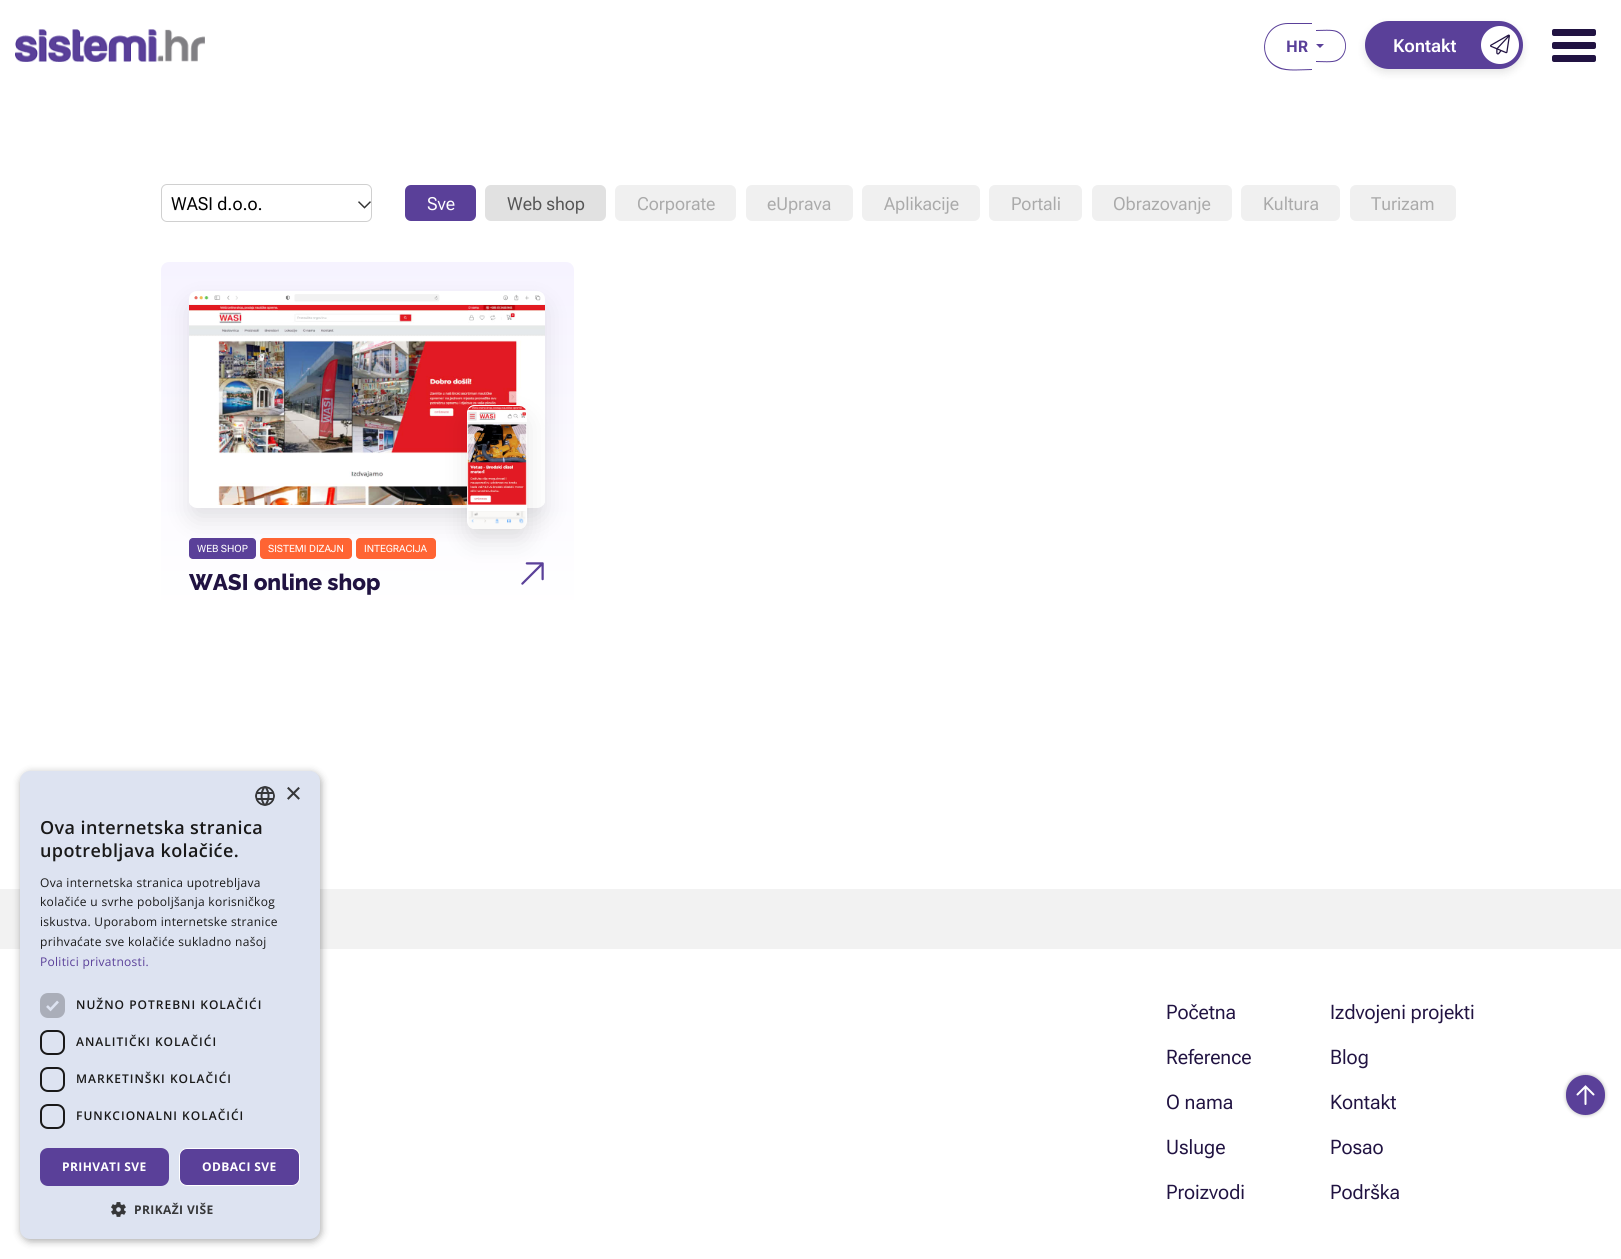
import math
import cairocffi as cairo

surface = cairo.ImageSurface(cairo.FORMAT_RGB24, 1621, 1259)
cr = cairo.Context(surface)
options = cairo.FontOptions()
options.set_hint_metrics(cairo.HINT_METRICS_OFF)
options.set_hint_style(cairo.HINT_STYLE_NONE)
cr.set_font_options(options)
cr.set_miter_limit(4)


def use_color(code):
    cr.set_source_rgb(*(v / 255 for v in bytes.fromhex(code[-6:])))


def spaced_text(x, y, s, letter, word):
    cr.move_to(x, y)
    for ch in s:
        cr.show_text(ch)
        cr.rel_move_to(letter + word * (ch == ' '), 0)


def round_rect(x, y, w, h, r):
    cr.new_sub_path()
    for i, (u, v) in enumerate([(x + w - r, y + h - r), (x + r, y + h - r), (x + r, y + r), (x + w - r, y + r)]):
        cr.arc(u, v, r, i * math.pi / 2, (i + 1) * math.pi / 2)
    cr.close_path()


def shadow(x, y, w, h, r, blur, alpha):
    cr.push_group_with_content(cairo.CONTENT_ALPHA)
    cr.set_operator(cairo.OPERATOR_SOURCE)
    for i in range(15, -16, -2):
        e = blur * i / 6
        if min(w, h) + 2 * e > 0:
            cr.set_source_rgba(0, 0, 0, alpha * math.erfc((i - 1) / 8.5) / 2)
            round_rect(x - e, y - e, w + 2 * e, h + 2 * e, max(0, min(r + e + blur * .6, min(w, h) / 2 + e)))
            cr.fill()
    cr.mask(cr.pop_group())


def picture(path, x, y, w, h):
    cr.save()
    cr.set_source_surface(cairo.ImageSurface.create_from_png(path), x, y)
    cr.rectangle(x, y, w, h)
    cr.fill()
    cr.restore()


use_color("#ffffff")
cr.paint()
use_color("#f2f2f2")
cr.rectangle(0, 889, 1621, 60)
cr.fill()
use_color("#000000")
shadow(21, 773, 300, 468, 10, 4, 0.35)
use_color("#dde3f1")
round_rect(20, 771, 300, 468, 10)
cr.fill()
picture("img1.png", 255, 786, 20, 20)
cr.select_font_face("Liberation Sans")
cr.set_font_size(29)
use_color("#363739")
cr.move_to(285, 803)
cr.show_text("×")
cr.select_font_face("Open Sans SemiBold")
cr.set_font_size(18)
use_color("#191919")
spaced_text(40, 834, "Ova internetska stranica", 0.4, 0)
spaced_text(40, 857, "upotrebljava kolačiće.", 0.4, 0)
cr.select_font_face("Open Sans")
cr.set_font_size(12)
spaced_text(40, 887, "Ova internetska stranica upotrebljava", 0.3, 0)
spaced_text(40, 906, "kolačiće u svrhe poboljšanja korisničkog", 0.3, 0)
spaced_text(40, 926, "iskustva. Uporabom internetske stranice", 0.3, 0)
spaced_text(40, 946, "prihvaćate sve kolačiće sukladno našoj", 0.3, 0)
use_color("#5a4099")
spaced_text(40, 966, "Politici privatnosti.", 0.3, 0)
use_color("#aaaeb9")
round_rect(40, 993, 25, 25, 8)
cr.fill()
cr.new_path()
cr.move_to(47, 1006)
cr.line_to(50.5, 1009.5)
cr.line_to(58, 1001.5)
use_color("#dde3f1")
cr.set_line_width(2.6)
cr.stroke()
cr.select_font_face("Open Sans SemiBold")
use_color("#191919")
spaced_text(76, 1009, "NUŽNO POTREBNI KOLAČIĆI", 1, 0)
round_rect(41, 1031, 23, 23, 7)
cr.set_line_width(2)
cr.stroke()
spaced_text(76, 1046, "ANALITIČKI KOLAČIĆI", 1, 0)
round_rect(41, 1068, 23, 23, 7)
cr.stroke()
spaced_text(76, 1083, "MARKETINŠKI KOLAČIĆI", 1, 0)
round_rect(41, 1105, 23, 23, 7)
cr.stroke()
spaced_text(76, 1120, "FUNKCIONALNI KOLAČIĆI", 1, 0)
use_color("#5a4099")
round_rect(40, 1148, 129, 38, 8)
cr.fill()
cr.select_font_face("Open Sans", cairo.FONT_SLANT_NORMAL, cairo.FONT_WEIGHT_BOLD)
use_color("#ffffff")
spaced_text(62, 1171, "PRIHVATI SVE", 0.4, 0)
use_color("#5a4099")
round_rect(179.5, 1148.5, 120, 37, 7.5)
cr.fill_preserve()
use_color("#ffffff")
cr.set_line_width(1)
cr.stroke()
spaced_text(202, 1171, "ODBACI SVE", 0.4, 0)
picture("img2.png", 111, 1202, 15, 15)
use_color("#363739")
spaced_text(134, 1214, "PRIKAŽI VIŠE", 0.4, 0)
picture("img3.png", 15, 29, 190, 33)
use_color("#5a4099")
cr.set_fill_rule(cairo.FILL_RULE_EVEN_ODD)
cr.new_path()
cr.move_to(1288, 23)
cr.line_to(1312, 23)
cr.line_to(1312, 70)
cr.curve_to(1303, 70, 1286, 72, 1278, 68)
cr.curve_to(1255, 58, 1262, 23, 1288, 23)
cr.close_path()
cr.move_to(1288, 24)
cr.line_to(1312, 24)
cr.line_to(1312, 69)
cr.curve_to(1303, 69, 1287, 71, 1279, 67)
cr.curve_to(1256, 58, 1263, 24, 1288, 24)
cr.close_path()
cr.fill()
cr.new_path()
cr.move_to(1316, 30)
cr.curve_to(1321.5, 30, 1332, 29, 1337, 31)
cr.curve_to(1349, 36.5, 1349, 55.5, 1337, 61)
cr.curve_to(1332, 63, 1321.5, 62, 1316, 62)
cr.close_path()
cr.move_to(1316, 31)
cr.curve_to(1321.5, 31, 1332, 30, 1336.5, 32)
cr.curve_to(1348, 37, 1348, 55, 1336.5, 60)
cr.curve_to(1332, 62, 1321.5, 61, 1316, 61)
cr.close_path()
cr.fill()
cr.select_font_face("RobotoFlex", cairo.FONT_SLANT_NORMAL, cairo.FONT_WEIGHT_BOLD)
cr.set_font_size(16)
cr.move_to(1286, 52)
cr.show_text("HR")
cr.set_fill_rule(cairo.FILL_RULE_WINDING)
cr.new_path()
cr.move_to(1316, 44)
cr.line_to(1324, 44)
cr.line_to(1320, 48)
cr.close_path()
cr.fill()
use_color("#000000")
shadow(1365, 25, 158, 48, 24, 4, 0.1)
use_color("#5a4099")
round_rect(1365, 21, 158, 48, 24)
cr.fill()
cr.select_font_face("RobotoFlex SemiBold")
cr.set_font_size(18)
use_color("#ffffff")
cr.move_to(1393, 52)
cr.show_text("Kontakt")
cr.new_path()
cr.arc(1500, 45, 19, 0, 2 * math.pi)
cr.fill()
picture("img4.png", 1490, 34, 20, 21)
use_color("#211342")
round_rect(1552, 29, 44, 7, 2)
cr.fill()
round_rect(1552, 42, 44, 7, 2)
cr.fill()
round_rect(1552, 55, 44, 7, 2)
cr.fill()
round_rect(161.5, 184.5, 210, 37, 5.5)
use_color("#d0d0d0")
cr.stroke()
cr.select_font_face("RobotoFlex")
use_color("#000000")
cr.move_to(171, 210)
cr.show_text("WASI d.o.o.")
picture("img5.png", 358, 201, 13, 8)
use_color("#5a4099")
round_rect(405, 185, 71, 36, 6)
cr.fill()
use_color("#ffffff")
cr.move_to(427, 210)
cr.show_text("Sve")
use_color("#e1e1e1")
round_rect(485, 185, 121, 36, 6)
cr.fill()
use_color("#555555")
cr.move_to(507, 210)
cr.show_text("Web shop")
use_color("#f0f0f0")
round_rect(615, 185, 121, 36, 6)
cr.fill()
use_color("#aaaaaa")
cr.move_to(637, 210)
cr.show_text("Corporate")
use_color("#f0f0f0")
round_rect(746, 185, 107, 36, 6)
cr.fill()
use_color("#aaaaaa")
cr.move_to(767, 210)
cr.show_text("eUprava")
use_color("#f0f0f0")
round_rect(862, 185, 118, 36, 6)
cr.fill()
use_color("#aaaaaa")
cr.move_to(884, 210)
cr.show_text("Aplikacije")
use_color("#f0f0f0")
round_rect(989, 185, 93, 36, 6)
cr.fill()
use_color("#aaaaaa")
cr.move_to(1011, 210)
cr.show_text("Portali")
use_color("#f0f0f0")
round_rect(1092, 185, 140, 36, 6)
cr.fill()
use_color("#aaaaaa")
cr.move_to(1113, 210)
cr.show_text("Obrazovanje")
use_color("#f0f0f0")
round_rect(1241, 185, 99, 36, 6)
cr.fill()
use_color("#aaaaaa")
cr.move_to(1263, 210)
cr.show_text("Kultura")
use_color("#f0f0f0")
round_rect(1350, 185, 106, 36, 6)
cr.fill()
use_color("#aaaaaa")
cr.move_to(1371, 210)
cr.show_text("Turizam")
gradient = cairo.LinearGradient(368, 262, 368, 615)
gradient.add_color_stop_rgba(0, 0.965, 0.953, 1, 1)
gradient.add_color_stop_rgba(1, 1, 1, 1, 1)
cr.set_source(gradient)
cr.new_path()
cr.move_to(169, 262)
cr.line_to(566, 262)
cr.curve_to(570.5, 262, 574, 265.5, 574, 270)
cr.line_to(574, 615)
cr.line_to(161, 615)
cr.line_to(161, 270)
cr.curve_to(161, 265.5, 164.5, 262, 169, 262)
cr.close_path()
cr.fill()
use_color("#5a4099")
round_rect(189, 538, 67, 21, 4)
cr.fill()
use_color("#ff6433")
round_rect(260, 538, 92, 21, 4)
cr.fill()
round_rect(356, 538, 80, 21, 4)
cr.fill()
use_color("#000000")
shadow(189, 303, 356, 217, 8, 12, 0.1)
gradient = cairo.LinearGradient(367, 291, 367, 508)
gradient.add_color_stop_rgba(0, 0.965, 0.953, 1, 1)
gradient.add_color_stop_rgba(1, 1, 1, 1, 1)
cr.set_source(gradient)
round_rect(189, 291, 356, 217, 8)
cr.fill()
picture("img6.png", 189, 291, 356, 14)
cr.save()
round_rect(189, 291, 356, 217, 8)
cr.clip()
use_color("#ffffff")
cr.rectangle(189, 500, 356, 5)
cr.fill()
cr.restore()
picture("img7.png", 189, 305, 356, 200)
picture("img10.png", 521, 562, 23, 23)
use_color("#000000")
shadow(467, 417, 60, 124, 8, 12, 0.1)
gradient = cairo.LinearGradient(497, 405, 497, 529)
gradient.add_color_stop_rgba(0, 0.965, 0.953, 1, 1)
gradient.add_color_stop_rgba(1, 1, 1, 1, 1)
cr.set_source(gradient)
round_rect(467, 405, 60, 124, 8)
cr.fill()
picture("img8.png", 468, 405, 58, 124)
use_color("#ffffff")
cr.new_path()
cr.move_to(475, 406)
cr.line_to(519, 406)
cr.curve_to(523.5, 406, 527, 409.5, 527, 414)
cr.line_to(527, 511)
cr.line_to(467, 511)
cr.line_to(467, 414)
cr.curve_to(467, 409.5, 470.5, 406, 475, 406)
cr.close_path()
cr.fill()
picture("img9.png", 467, 406, 60, 99)
cr.select_font_face("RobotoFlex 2")
cr.set_font_size(10)
cr.move_to(197, 552)
cr.show_text("WEB SHOP")
cr.move_to(268, 552)
cr.show_text("SISTEMI DIZAJN")
cr.move_to(364, 552)
cr.show_text("INTEGRACIJA")
cr.select_font_face("Raleway ExtraBold")
cr.set_font_size(22.5)
use_color("#211342")
cr.move_to(189, 590)
cr.show_text("WASI online shop")
cr.select_font_face("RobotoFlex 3")
cr.set_font_size(20)
cr.move_to(1166, 1019)
cr.show_text("Početna")
cr.move_to(1330, 1019)
cr.show_text("Izdvojeni projekti")
cr.move_to(1166, 1064)
cr.show_text("Reference")
cr.move_to(1330, 1064)
cr.show_text("Blog")
cr.move_to(1166, 1109)
cr.show_text("O nama")
cr.move_to(1330, 1109)
cr.show_text("Kontakt")
cr.move_to(1166, 1154)
cr.show_text("Usluge")
cr.move_to(1330, 1154)
cr.show_text("Posao")
cr.move_to(1166, 1199)
cr.show_text("Proizvodi")
cr.move_to(1330, 1199)
cr.show_text("Podrška")
use_color("#000000")
shadow(1566, 1075, 39, 40, 19.5, 2, 0.3)
use_color("#5a4099")
round_rect(1566, 1075, 39, 40, 19.5)
cr.fill()
cr.new_path()
cr.move_to(1577.5, 1094.5)
cr.line_to(1585.5, 1086.5)
cr.line_to(1593.5, 1094.5)
cr.move_to(1585.5, 1086.5)
cr.line_to(1585.5, 1104)
use_color("#ffffff")
cr.set_line_width(2)
cr.set_line_cap(cairo.LINE_CAP_ROUND)
cr.stroke()
surface.write_to_png("result.png")
